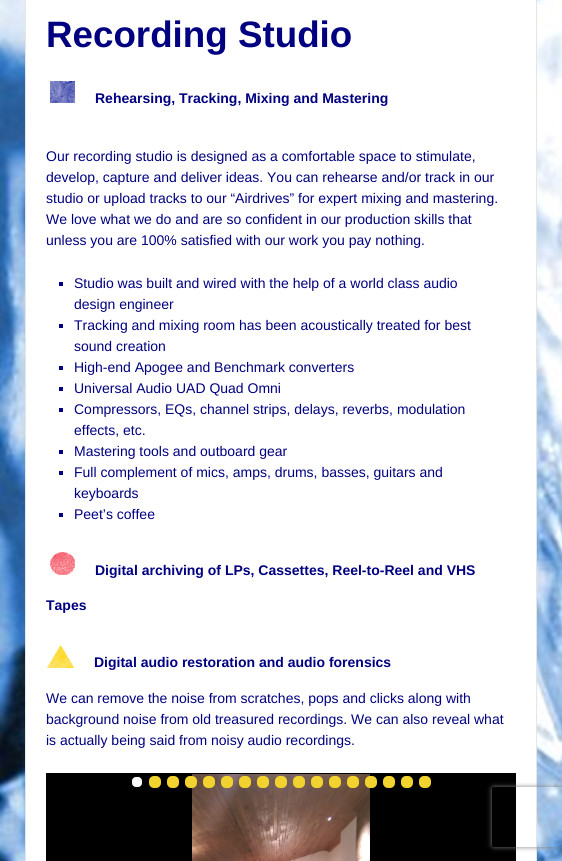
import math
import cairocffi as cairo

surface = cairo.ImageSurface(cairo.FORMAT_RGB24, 562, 861)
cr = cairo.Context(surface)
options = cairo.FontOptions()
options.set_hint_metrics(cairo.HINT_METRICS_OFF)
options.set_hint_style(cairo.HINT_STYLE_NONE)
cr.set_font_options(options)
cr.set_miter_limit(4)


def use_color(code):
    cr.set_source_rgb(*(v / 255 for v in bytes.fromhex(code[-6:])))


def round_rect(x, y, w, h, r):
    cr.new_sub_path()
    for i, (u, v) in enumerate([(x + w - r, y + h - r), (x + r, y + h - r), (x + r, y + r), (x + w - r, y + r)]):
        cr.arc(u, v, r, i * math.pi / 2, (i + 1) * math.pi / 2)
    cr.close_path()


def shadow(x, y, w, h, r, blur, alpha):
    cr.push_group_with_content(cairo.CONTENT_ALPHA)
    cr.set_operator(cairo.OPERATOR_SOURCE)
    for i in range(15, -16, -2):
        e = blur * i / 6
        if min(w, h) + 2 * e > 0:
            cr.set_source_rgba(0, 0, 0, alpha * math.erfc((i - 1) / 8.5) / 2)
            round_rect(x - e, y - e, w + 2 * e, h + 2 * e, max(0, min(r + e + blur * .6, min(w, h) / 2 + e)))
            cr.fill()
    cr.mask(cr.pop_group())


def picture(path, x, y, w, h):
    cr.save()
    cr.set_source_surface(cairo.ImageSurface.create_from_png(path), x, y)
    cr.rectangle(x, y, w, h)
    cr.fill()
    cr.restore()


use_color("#ffffff")
cr.paint()
picture("img1.png", 0, 0, 562, 861)
use_color("#ffffff")
cr.rectangle(25.5, -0.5, 511, 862)
cr.fill_preserve()
use_color("#e5e5e5")
cr.set_line_width(1)
cr.stroke()
cr.select_font_face("Liberation Sans", cairo.FONT_SLANT_NORMAL, cairo.FONT_WEIGHT_BOLD)
cr.set_font_size(36.75)
use_color("#000080")
cr.move_to(46, 47)
cr.show_text("Recording Studio")
picture("img2.png", 50, 81, 25, 22)
cr.set_font_size(14)
cr.move_to(95, 103)
cr.show_text("Rehearsing, Tracking, Mixing and Mastering")
cr.select_font_face("Liberation Sans")
cr.move_to(46, 161)
cr.show_text("Our recording studio is designed as a comfortable space to stimulate,")
cr.move_to(46, 182)
cr.show_text("develop, capture and deliver ideas. You can rehearse and/or track in our")
cr.move_to(46, 203)
cr.show_text("studio or upload tracks to our “Airdrives” for expert mixing and mastering.")
cr.move_to(46, 224)
cr.show_text("We love what we do and are so confident in our production skills that")
cr.move_to(46, 245)
cr.show_text("unless you are 100% satisfied with our work you pay nothing.")
cr.rectangle(59, 282, 4, 4)
cr.fill()
cr.move_to(74, 288)
cr.show_text("Studio was built and wired with the help of a world class audio")
cr.move_to(74, 309)
cr.show_text("design engineer")
cr.rectangle(59, 324, 4, 4)
cr.fill()
cr.move_to(74, 330)
cr.show_text("Tracking and mixing room has been acoustically treated for best")
cr.move_to(74, 351)
cr.show_text("sound creation")
cr.rectangle(59, 366, 4, 4)
cr.fill()
cr.move_to(74, 372)
cr.show_text("High-end Apogee and Benchmark converters")
cr.rectangle(59, 387, 4, 4)
cr.fill()
cr.move_to(74, 393)
cr.show_text("Universal Audio UAD Quad Omni")
cr.rectangle(59, 408, 4, 4)
cr.fill()
cr.move_to(74, 414)
cr.show_text("Compressors, EQs, channel strips, delays, reverbs, modulation")
cr.move_to(74, 435)
cr.show_text("effects, etc.")
cr.rectangle(59, 450, 4, 4)
cr.fill()
cr.move_to(74, 456)
cr.show_text("Mastering tools and outboard gear")
cr.rectangle(59, 471, 4, 4)
cr.fill()
cr.move_to(74, 477)
cr.show_text("Full complement of mics, amps, drums, basses, guitars and")
cr.move_to(74, 498)
cr.show_text("keyboards")
cr.rectangle(59, 513, 4, 4)
cr.fill()
cr.move_to(74, 519)
cr.show_text("Peet’s coffee")
picture("img3.png", 50, 552, 25, 23)
cr.select_font_face("Liberation Sans", cairo.FONT_SLANT_NORMAL, cairo.FONT_WEIGHT_BOLD)
cr.move_to(95, 575)
cr.show_text("Digital archiving of LPs, Cassettes, Reel-to-Reel and VHS")
cr.move_to(46, 610)
cr.show_text("Tapes")
picture("img4.png", 46, 644, 28, 24)
cr.move_to(94, 667)
cr.show_text("Digital audio restoration and audio forensics")
cr.select_font_face("Liberation Sans")
cr.move_to(46, 703)
cr.show_text("We can remove the noise from scratches, pops and clicks along with")
cr.move_to(46, 724)
cr.show_text("background noise from old treasured recordings. We can also reveal what")
cr.move_to(46, 745)
cr.show_text("is actually being said from noisy audio recordings.")
use_color("#000000")
cr.rectangle(46, 773, 470, 88)
cr.fill()
picture("img5.png", 192, 774, 178, 87)
use_color("#ffffff")
round_rect(131.5, 776.5, 11, 11, 4.5)
cr.fill_preserve()
use_color("#000000")
cr.stroke()
use_color("#f2d22e")
round_rect(149, 776, 12, 12, 5)
cr.fill()
round_rect(167, 776, 12, 12, 5)
cr.fill()
round_rect(185, 776, 12, 12, 5)
cr.fill()
round_rect(203, 776, 12, 12, 5)
cr.fill()
round_rect(221, 776, 12, 12, 5)
cr.fill()
round_rect(239, 776, 12, 12, 5)
cr.fill()
round_rect(257, 776, 12, 12, 5)
cr.fill()
round_rect(275, 776, 12, 12, 5)
cr.fill()
round_rect(293, 776, 12, 12, 5)
cr.fill()
round_rect(311, 776, 12, 12, 5)
cr.fill()
round_rect(329, 776, 12, 12, 5)
cr.fill()
round_rect(347, 776, 12, 12, 5)
cr.fill()
round_rect(365, 776, 12, 12, 5)
cr.fill()
round_rect(383, 776, 12, 12, 5)
cr.fill()
round_rect(401, 776, 12, 12, 5)
cr.fill()
round_rect(419, 776, 12, 12, 5)
cr.fill()
cr.save()
cr.set_fill_rule(cairo.FILL_RULE_EVEN_ODD)
cr.new_path()
cr.move_to(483, 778)
cr.line_to(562, 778)
cr.line_to(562, 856)
cr.line_to(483, 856)
cr.close_path()
cr.move_to(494, 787)
cr.line_to(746, 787)
cr.curve_to(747, 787, 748, 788, 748, 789)
cr.line_to(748, 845)
cr.curve_to(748, 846, 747, 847, 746, 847)
cr.line_to(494, 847)
cr.curve_to(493, 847, 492, 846, 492, 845)
cr.line_to(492, 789)
cr.curve_to(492, 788, 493, 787, 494, 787)
cr.close_path()
cr.clip()
use_color("#808080")
shadow(492, 787, 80, 60, 2, 2.5, 1)
cr.restore()
surface.write_to_png("result.png")
